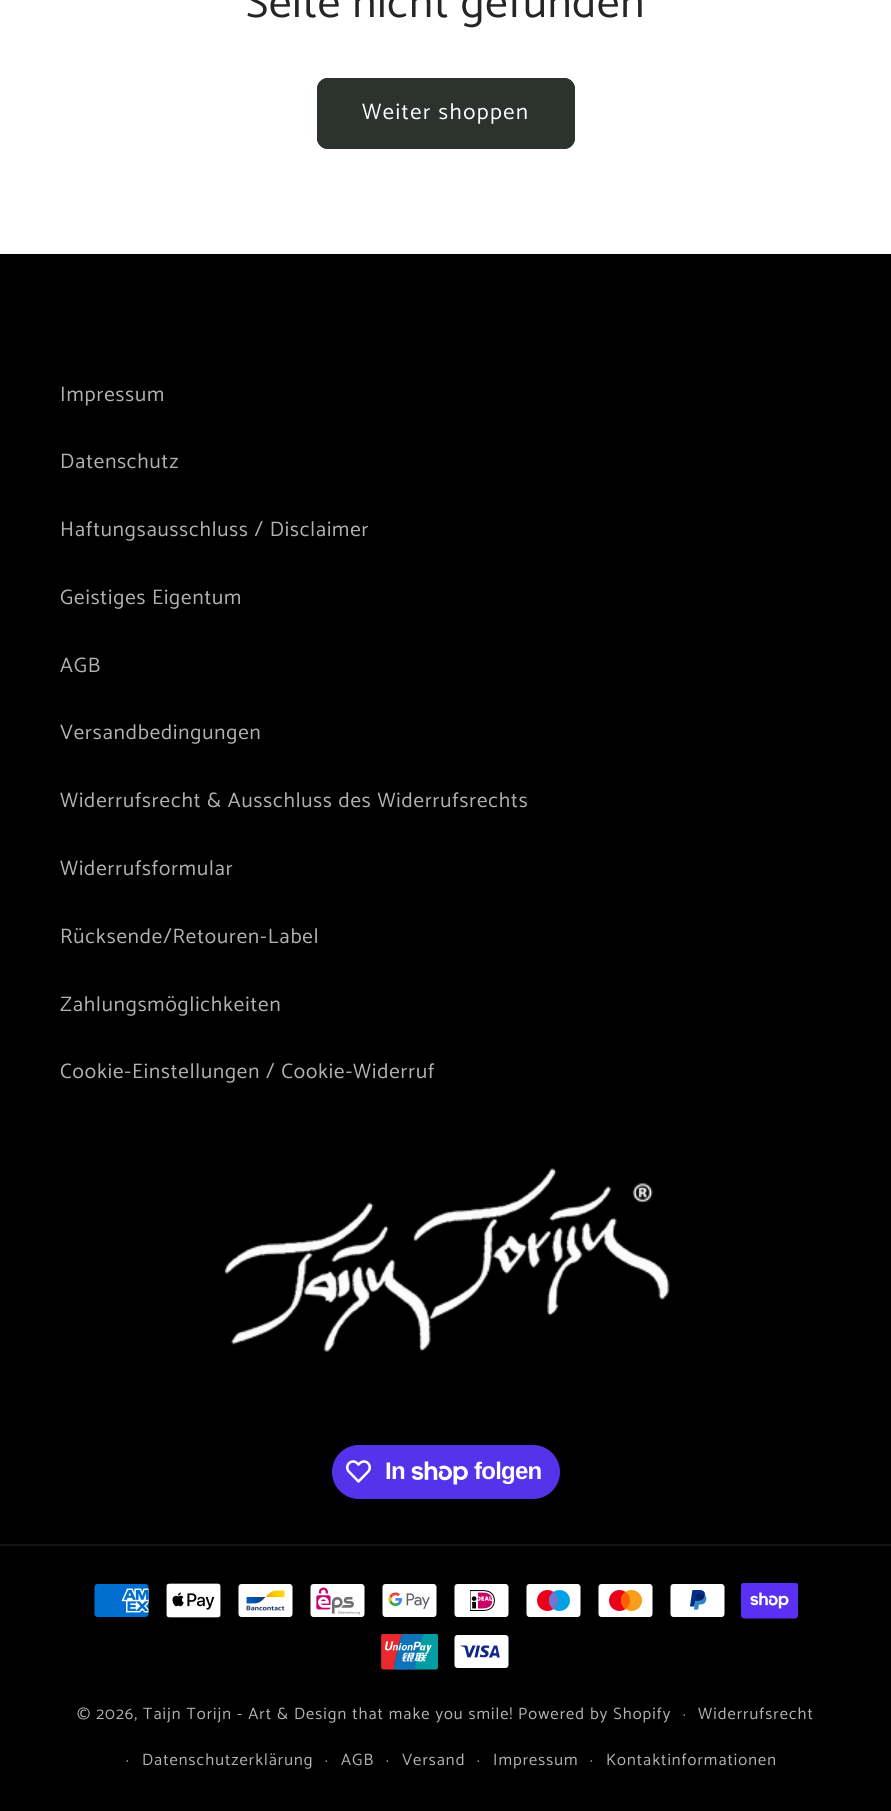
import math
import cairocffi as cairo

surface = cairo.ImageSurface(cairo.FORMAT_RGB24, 891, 1811)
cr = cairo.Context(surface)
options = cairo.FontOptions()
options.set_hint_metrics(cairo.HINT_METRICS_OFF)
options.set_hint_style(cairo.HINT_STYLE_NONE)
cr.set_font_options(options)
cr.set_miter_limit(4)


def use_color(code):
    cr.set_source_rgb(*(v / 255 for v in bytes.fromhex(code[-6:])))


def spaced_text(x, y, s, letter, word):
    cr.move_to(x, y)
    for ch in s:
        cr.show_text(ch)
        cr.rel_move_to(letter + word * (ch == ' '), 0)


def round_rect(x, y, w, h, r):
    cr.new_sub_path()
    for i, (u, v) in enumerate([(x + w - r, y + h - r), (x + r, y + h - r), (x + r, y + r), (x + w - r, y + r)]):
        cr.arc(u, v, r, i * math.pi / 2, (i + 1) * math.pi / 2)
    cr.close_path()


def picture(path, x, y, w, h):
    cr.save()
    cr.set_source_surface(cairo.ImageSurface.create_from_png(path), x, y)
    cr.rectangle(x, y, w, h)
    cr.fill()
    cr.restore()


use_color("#ffffff")
cr.paint()
cr.select_font_face("Catamaran")
cr.set_font_size(45)
use_color("#252525")
spaced_text(245, 17, "Seite nicht gefunden", 0.9, 0)
use_color("#2c332f")
round_rect(317, 78, 258, 71, 11)
cr.fill()
round_rect(318, 79, 256, 69, 10)
cr.stroke()
cr.set_font_size(22.5)
use_color("#ffffff")
spaced_text(362, 119, "Weiter shoppen", 1.5, 0)
use_color("#000000")
cr.rectangle(0, 254, 891, 1557)
cr.fill()
cr.set_font_size(21)
use_color("#b3b1b1")
spaced_text(60, 401, "Impressum", 0.9, 0)
spaced_text(60, 468, "Datenschutz", 0.9, 0)
spaced_text(60, 536, "Haftungsausschluss / Disclaimer", 0.9, 0)
spaced_text(60, 604, "Geistiges Eigentum", 0.9, 0)
spaced_text(60, 672, "AGB", 0.9, 0)
spaced_text(60, 739, "Versandbedingungen", 0.9, 0)
spaced_text(60, 807, "Widerrufsrecht & Ausschluss des Widerrufsrechts", 0.9, 0)
spaced_text(60, 875, "Widerrufsformular", 0.9, 0)
spaced_text(60, 943, "Rücksende/Retouren-Label", 0.9, 0)
spaced_text(60, 1011, "Zahlungsmöglichkeiten", 0.9, 0)
spaced_text(60, 1078, "Cookie-Einstellungen / Cookie-Widerruf", 0.9, 0)
picture("img1.png", 224, 1168, 446, 184)
use_color("#5433eb")
round_rect(332, 1445, 228, 54, 27)
cr.fill()
picture("img2.png", 346, 1460, 25, 23)
cr.select_font_face("Liberation Sans", cairo.FONT_SLANT_NORMAL, cairo.FONT_WEIGHT_BOLD)
cr.set_font_size(24)
use_color("#ffffff")
spaced_text(385, 1479, "In", -0.75, 0)
picture("img3.png", 411, 1461, 57, 24)
spaced_text(474, 1479, "folgen", -0.75, 0)
use_color("#131313")
cr.rectangle(0, 1544, 891, 2)
cr.fill()
picture("img4.png", 94, 1584, 55, 33)
picture("img5.png", 166, 1583, 55, 35)
picture("img6.png", 238, 1584, 55, 33)
picture("img7.png", 310, 1584, 55, 33)
picture("img8.png", 382, 1584, 55, 33)
picture("img9.png", 454, 1584, 55, 33)
picture("img10.png", 526, 1584, 55, 33)
picture("img11.png", 598, 1584, 55, 33)
picture("img12.png", 670, 1584, 55, 33)
picture("img13.png", 741, 1583, 57, 36)
picture("img14.png", 381, 1634, 57, 36)
picture("img15.png", 454, 1635, 55, 33)
cr.select_font_face("Catamaran")
cr.set_font_size(16.5)
use_color("#b3b1b1")
spaced_text(77, 1719, "© 2026, Taijn Torijn - Art & Design that make you smile!", 1.05, 0)
cr.set_font_size(15)
spaced_text(683, 1719, "·", 1.05, 0)
cr.set_font_size(16.5)
spaced_text(698, 1719, "Widerrufsrecht", 1.05, 0)
cr.set_font_size(15)
spaced_text(126, 1765, "·", 1.05, 0)
cr.set_font_size(16.5)
spaced_text(142, 1765, "Datenschutzerklärung", 1.05, 0)
cr.set_font_size(15)
spaced_text(325, 1765, "·", 1.05, 0)
cr.set_font_size(16.5)
spaced_text(341, 1765, "AGB", 1.05, 0)
cr.set_font_size(15)
spaced_text(386, 1765, "·", 1.05, 0)
cr.set_font_size(16.5)
spaced_text(402, 1765, "Versand", 1.05, 0)
cr.set_font_size(15)
spaced_text(477, 1765, "·", 1.05, 0)
cr.set_font_size(16.5)
spaced_text(493, 1765, "Impressum", 1.05, 0)
cr.set_font_size(15)
spaced_text(590, 1765, "·", 1.05, 0)
cr.set_font_size(16.5)
spaced_text(606, 1765, "Kontaktinformationen", 1.05, 0)
spaced_text(518, 1719, "Powered by Shopify", 1.05, 0)
surface.write_to_png("result.png")
